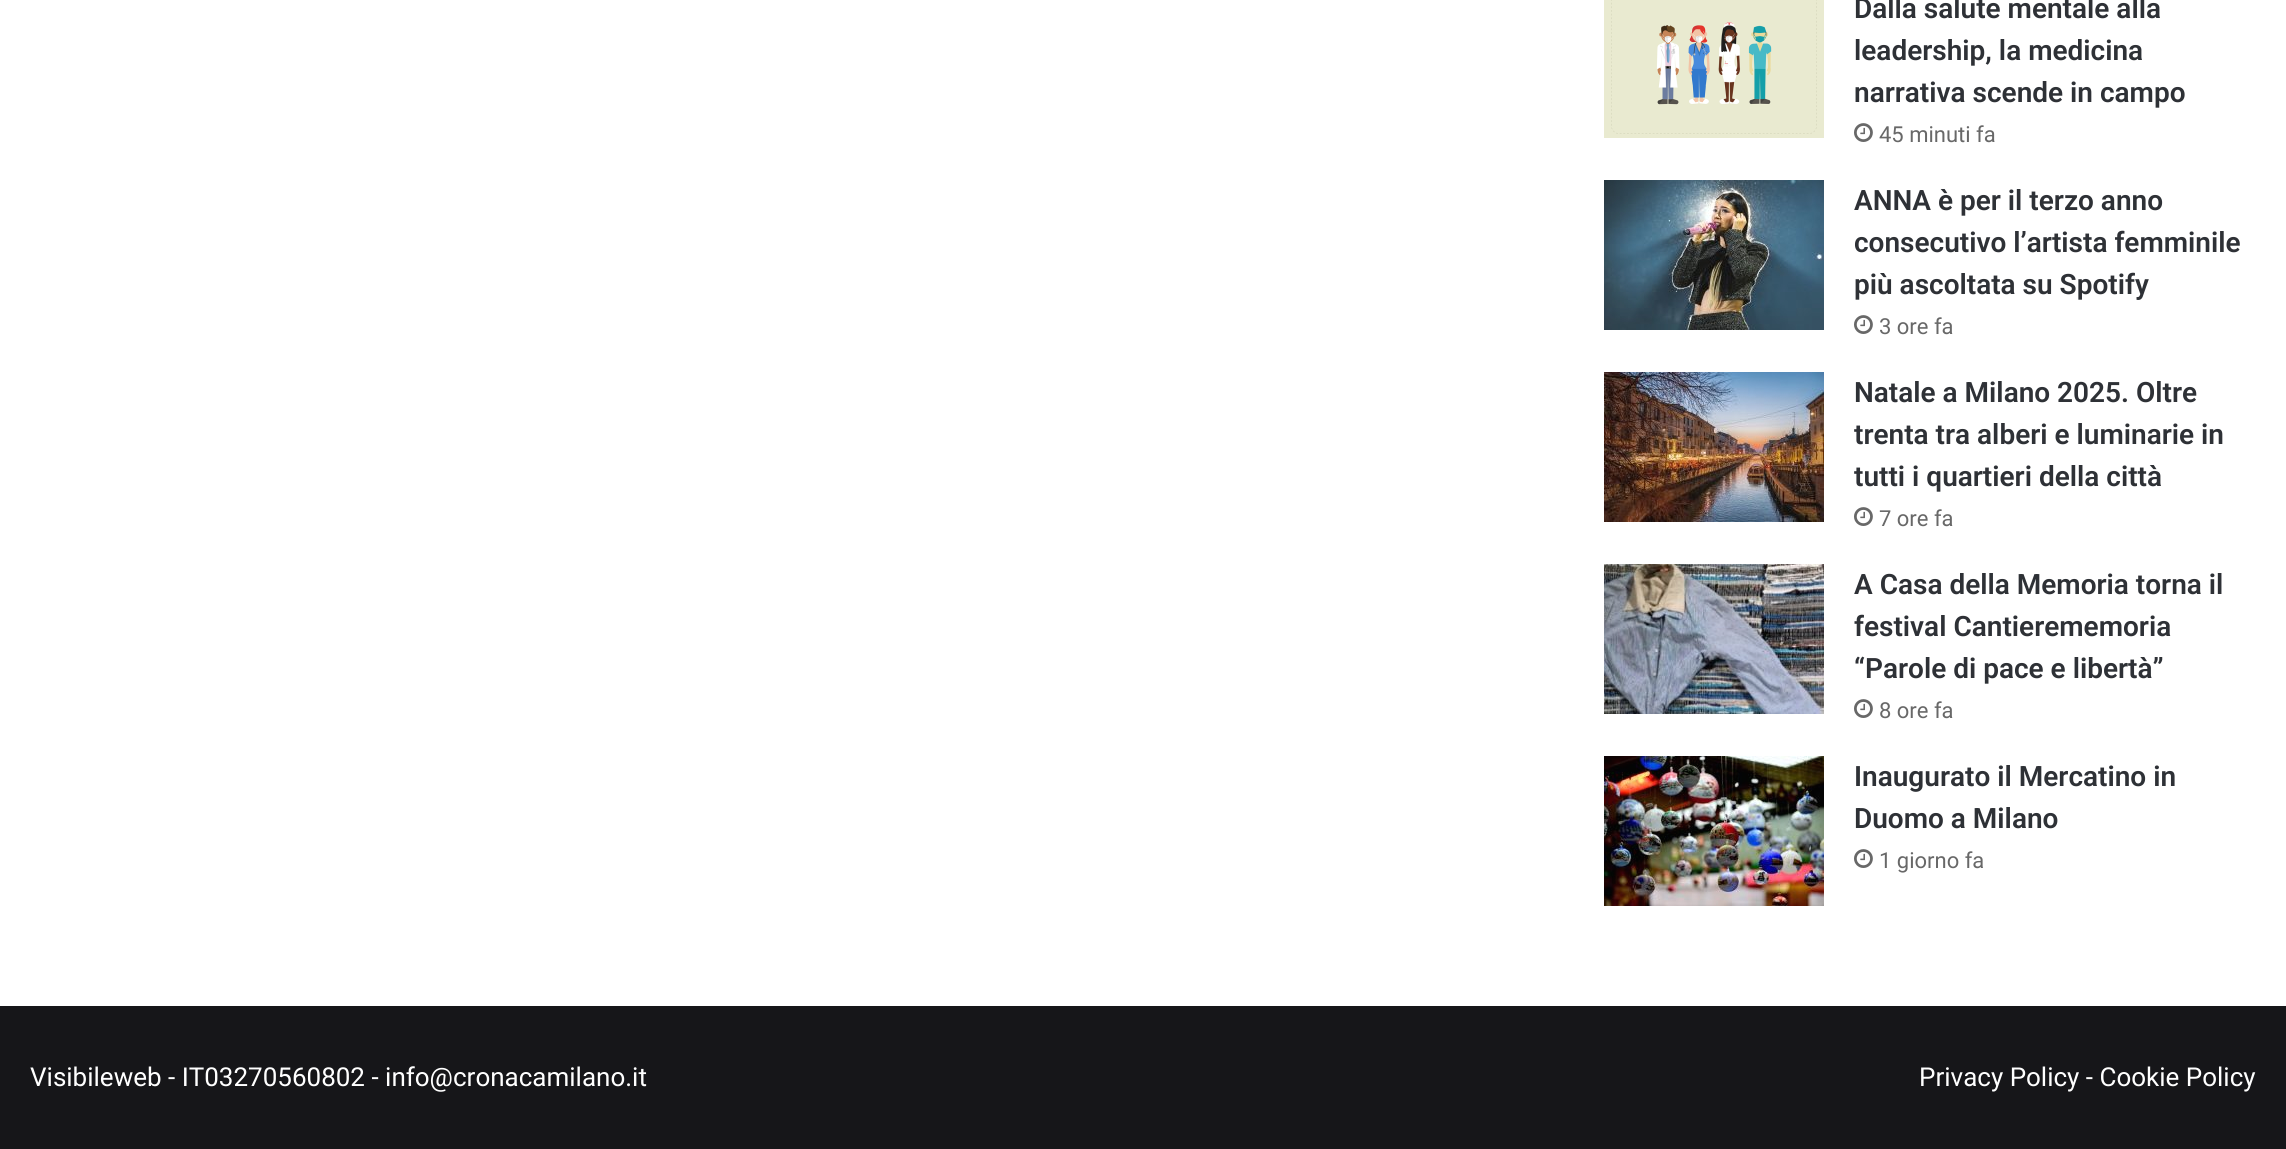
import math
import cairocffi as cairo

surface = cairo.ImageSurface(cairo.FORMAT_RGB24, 2286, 1149)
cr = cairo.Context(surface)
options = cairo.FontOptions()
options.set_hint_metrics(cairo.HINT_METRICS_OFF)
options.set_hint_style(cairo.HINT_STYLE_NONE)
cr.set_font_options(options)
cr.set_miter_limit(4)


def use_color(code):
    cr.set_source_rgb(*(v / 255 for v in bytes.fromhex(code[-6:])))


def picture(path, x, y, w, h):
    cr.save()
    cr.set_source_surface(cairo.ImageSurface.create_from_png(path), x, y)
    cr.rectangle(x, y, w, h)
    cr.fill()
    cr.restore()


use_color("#ffffff")
cr.paint()
picture("img1.png", 1604, 0, 220, 138)
cr.select_font_face("Roboto SemiBold")
cr.set_font_size(28)
use_color("#2e3136")
cr.move_to(1854, 18)
cr.show_text("Dalla salute mentale alla")
cr.move_to(1854, 60)
cr.show_text("leadership, la medicina")
cr.move_to(1854, 102)
cr.show_text("narrativa scende in campo")
picture("img2.png", 1854, 123, 19, 19)
cr.select_font_face("Roboto")
cr.set_font_size(22)
use_color("#686868")
cr.move_to(1879, 142)
cr.show_text("45 minuti fa")
picture("img3.png", 1604, 180, 220, 150)
cr.select_font_face("Roboto SemiBold")
cr.set_font_size(28)
use_color("#2e3136")
cr.move_to(1854, 210)
cr.show_text("ANNA è per il terzo anno")
cr.move_to(1854, 252)
cr.show_text("consecutivo l’artista femminile")
cr.move_to(1854, 294)
cr.show_text("più ascoltata su Spotify")
picture("img2.png", 1854, 315, 19, 19)
cr.select_font_face("Roboto")
cr.set_font_size(22)
use_color("#686868")
cr.move_to(1879, 334)
cr.show_text("3 ore fa")
picture("img4.png", 1604, 372, 220, 150)
cr.select_font_face("Roboto SemiBold")
cr.set_font_size(28)
use_color("#2e3136")
cr.move_to(1854, 402)
cr.show_text("Natale a Milano 2025. Oltre")
cr.move_to(1854, 444)
cr.show_text("trenta tra alberi e luminarie in")
cr.move_to(1854, 486)
cr.show_text("tutti i quartieri della città")
picture("img2.png", 1854, 507, 19, 19)
cr.select_font_face("Roboto")
cr.set_font_size(22)
use_color("#686868")
cr.move_to(1879, 526)
cr.show_text("7 ore fa")
picture("img5.png", 1604, 564, 220, 150)
cr.select_font_face("Roboto SemiBold")
cr.set_font_size(28)
use_color("#2e3136")
cr.move_to(1854, 594)
cr.show_text("A Casa della Memoria torna il")
cr.move_to(1854, 636)
cr.show_text("festival Cantierememoria")
cr.move_to(1854, 678)
cr.show_text("“Parole di pace e libertà”")
picture("img2.png", 1854, 699, 19, 19)
cr.select_font_face("Roboto")
cr.set_font_size(22)
use_color("#686868")
cr.move_to(1879, 718)
cr.show_text("8 ore fa")
picture("img6.png", 1604, 756, 220, 150)
cr.select_font_face("Roboto SemiBold")
cr.set_font_size(28)
use_color("#2e3136")
cr.move_to(1854, 786)
cr.show_text("Inaugurato il Mercatino in")
cr.move_to(1854, 828)
cr.show_text("Duomo a Milano")
picture("img2.png", 1854, 849, 19, 19)
cr.select_font_face("Roboto")
cr.set_font_size(22)
use_color("#686868")
cr.move_to(1879, 868)
cr.show_text("1 giorno fa")
use_color("#161619")
cr.rectangle(0, 1006, 2286, 143)
cr.fill()
cr.set_font_size(26)
use_color("#ffffff")
cr.move_to(30, 1086)
cr.show_text("Visibileweb - IT03270560802 - info@cronacamilano.it")
cr.move_to(1919, 1086)
cr.show_text("Privacy Policy - Cookie Policy")
surface.write_to_png("result.png")
